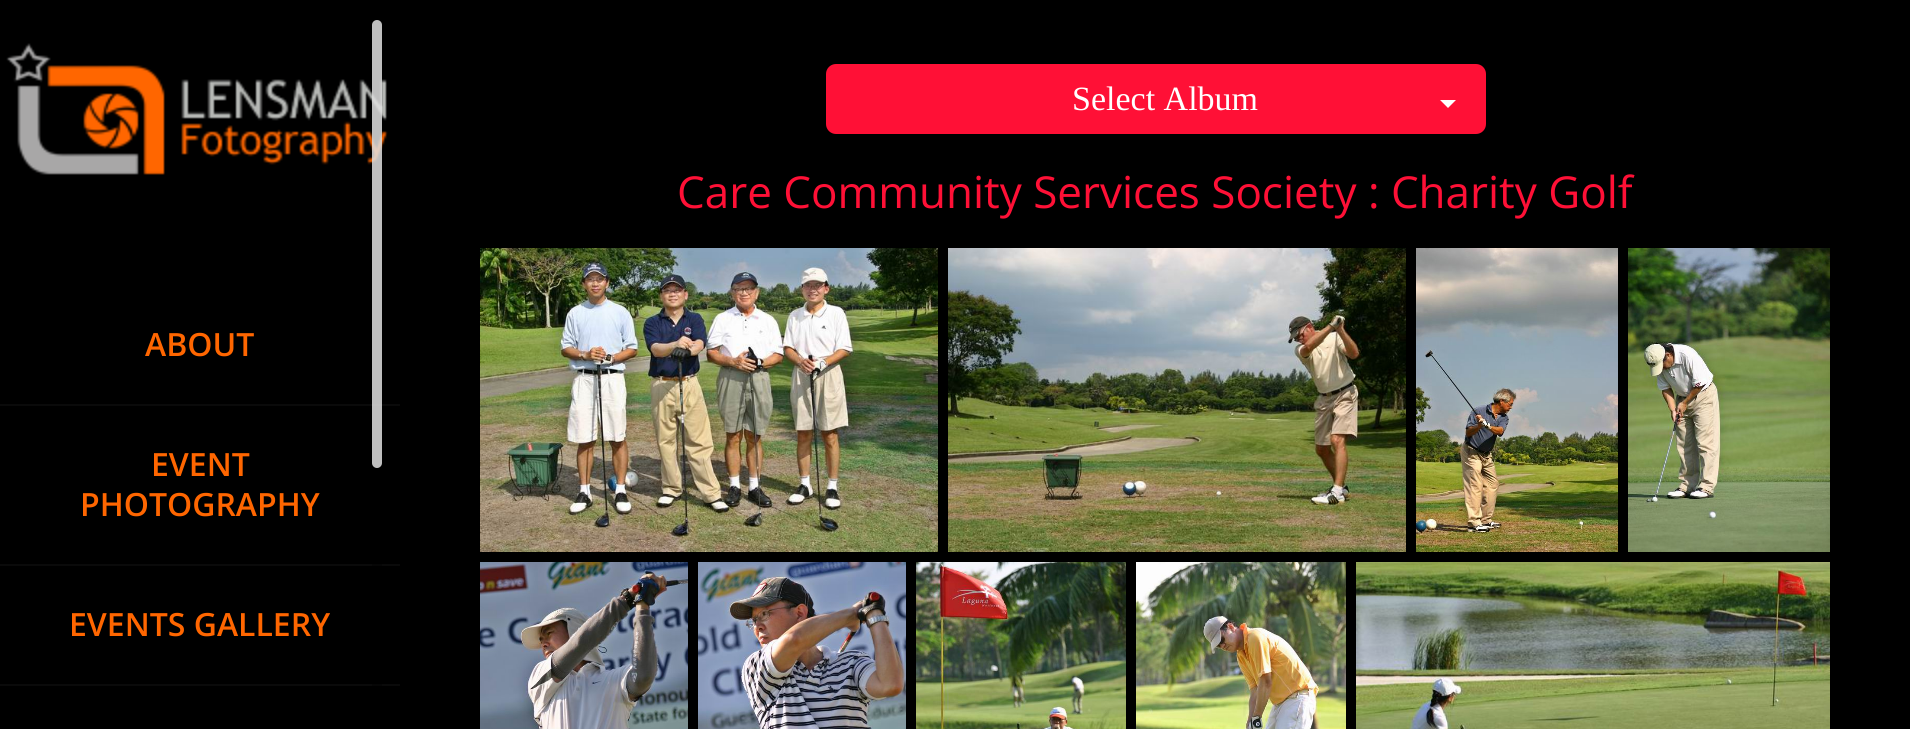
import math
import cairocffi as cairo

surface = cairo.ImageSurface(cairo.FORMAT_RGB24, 1910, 729)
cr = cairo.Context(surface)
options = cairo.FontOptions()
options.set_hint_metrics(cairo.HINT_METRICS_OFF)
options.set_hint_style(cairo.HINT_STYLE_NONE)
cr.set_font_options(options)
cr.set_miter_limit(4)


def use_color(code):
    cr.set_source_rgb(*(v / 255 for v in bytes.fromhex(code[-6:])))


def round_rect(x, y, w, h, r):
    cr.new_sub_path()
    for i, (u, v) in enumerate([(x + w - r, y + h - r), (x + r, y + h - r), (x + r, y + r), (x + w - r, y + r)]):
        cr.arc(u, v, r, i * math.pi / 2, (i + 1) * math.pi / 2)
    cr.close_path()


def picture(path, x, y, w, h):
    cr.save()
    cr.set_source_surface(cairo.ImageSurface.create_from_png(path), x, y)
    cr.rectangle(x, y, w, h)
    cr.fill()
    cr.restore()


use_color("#000000")
cr.paint()
use_color("#ff1036")
round_rect(826, 64, 660, 70, 10)
cr.fill()
cr.select_font_face("Liberation Serif")
cr.set_font_size(34)
use_color("#ffffff")
cr.move_to(1072, 110)
cr.show_text("Select Album")
cr.new_path()
cr.move_to(1440, 100)
cr.line_to(1456, 100)
cr.line_to(1448, 108)
cr.close_path()
cr.fill()
cr.select_font_face("Open Sans")
cr.set_font_size(44)
use_color("#ff1036")
cr.move_to(677, 208)
cr.show_text("Care Community Services Society : Charity Golf")
picture("img1.png", 480, 248, 458, 304)
picture("img2.png", 948, 248, 458, 304)
picture("img3.png", 1416, 248, 202, 304)
picture("img4.png", 1628, 248, 202, 304)
picture("img5.png", 480, 562, 208, 167)
picture("img6.png", 698, 562, 208, 167)
picture("img7.png", 916, 562, 210, 167)
picture("img8.png", 1136, 562, 210, 167)
picture("img9.png", 1356, 562, 474, 167)
picture("img10.png", 6, 43, 382, 132)
cr.select_font_face("Open Sans SemiBold")
cr.set_font_size(32)
use_color("#ff6600")
cr.move_to(145, 356)
cr.show_text("ABOUT")
use_color("#0a0a0a")
cr.rectangle(0, 404, 400, 2)
cr.fill()
use_color("#ff6600")
cr.move_to(151, 476)
cr.show_text("EVENT")
cr.move_to(80, 516)
cr.show_text("PHOTOGRAPHY")
use_color("#0a0a0a")
cr.rectangle(0, 564, 400, 2)
cr.fill()
use_color("#ff6600")
cr.move_to(69, 636)
cr.show_text("EVENTS GALLERY")
use_color("#0a0a0a")
cr.rectangle(0, 684, 400, 2)
cr.fill()
cr.set_source_rgba(0, 0, 0, 0.4)
round_rect(372, 20, 10, 690, 5)
cr.fill()
cr.set_source_rgba(1, 1, 1, 0.75)
round_rect(372, 20, 10, 448, 5)
cr.fill()
surface.write_to_png("result.png")
